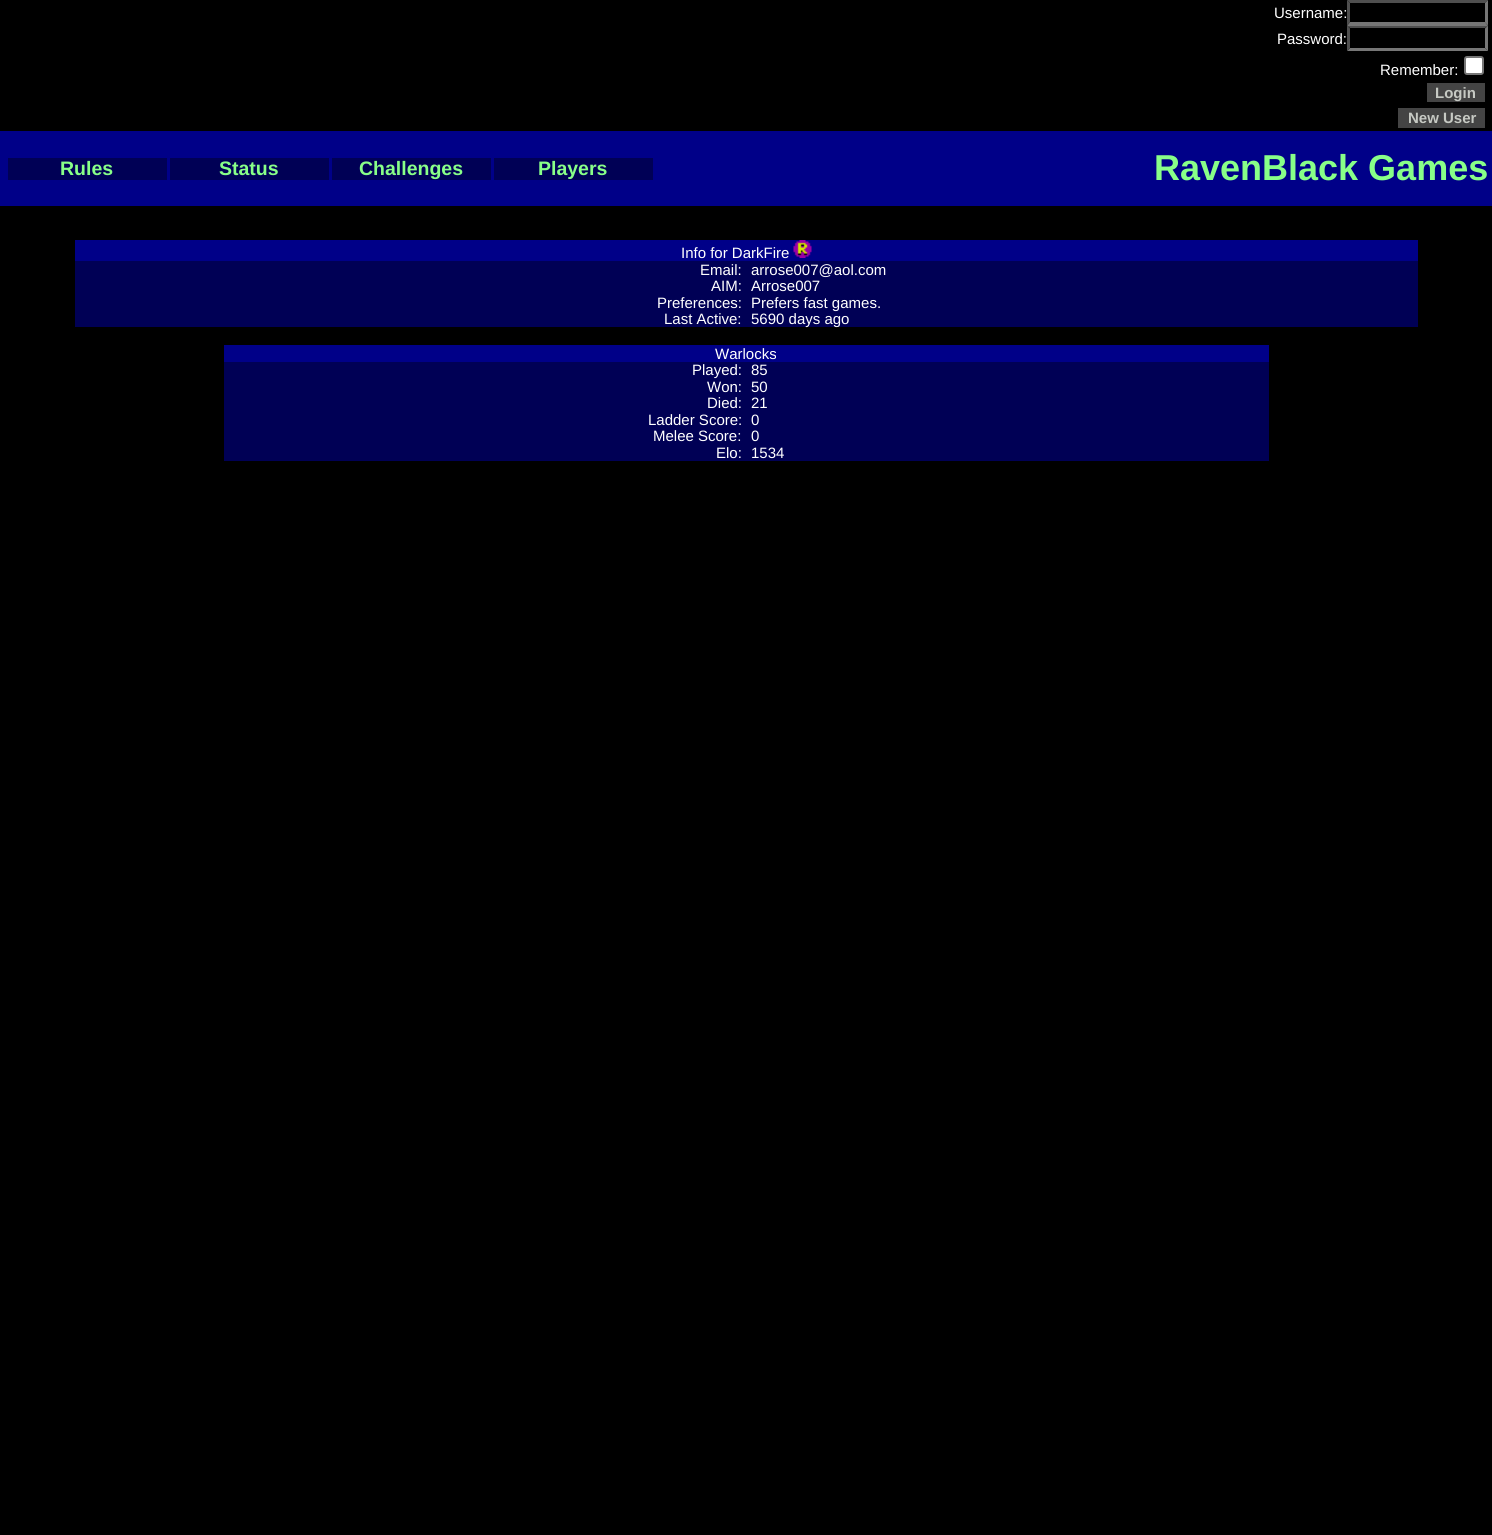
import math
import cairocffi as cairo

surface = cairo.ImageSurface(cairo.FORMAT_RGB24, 1492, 1535)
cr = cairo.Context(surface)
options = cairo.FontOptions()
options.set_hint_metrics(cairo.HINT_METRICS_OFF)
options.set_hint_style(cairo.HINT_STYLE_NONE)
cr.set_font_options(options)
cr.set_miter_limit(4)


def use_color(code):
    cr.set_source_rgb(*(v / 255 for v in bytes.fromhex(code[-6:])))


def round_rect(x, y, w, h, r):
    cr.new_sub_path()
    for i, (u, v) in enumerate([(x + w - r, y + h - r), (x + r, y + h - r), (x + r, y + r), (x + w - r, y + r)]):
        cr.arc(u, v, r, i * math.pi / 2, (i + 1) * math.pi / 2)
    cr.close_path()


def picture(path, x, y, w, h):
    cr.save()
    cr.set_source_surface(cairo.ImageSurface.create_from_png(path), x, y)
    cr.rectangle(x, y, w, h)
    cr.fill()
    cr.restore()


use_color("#000000")
cr.paint()
cr.select_font_face("Liberation Sans")
cr.set_font_size(15)
use_color("#ffffff")
cr.move_to(1274, 18)
cr.show_text("Username:")
use_color("#4f4f4f")
cr.new_path()
cr.move_to(1347, 0)
cr.line_to(1488, 0)
cr.line_to(1485, 3)
cr.line_to(1350, 3)
cr.close_path()
cr.fill()
use_color("#767676")
cr.new_path()
cr.move_to(1488, 0)
cr.line_to(1488, 25.5)
cr.line_to(1485, 22.5)
cr.line_to(1485, 3)
cr.close_path()
cr.fill()
cr.new_path()
cr.move_to(1488, 26)
cr.line_to(1347, 26)
cr.line_to(1350, 22)
cr.line_to(1485, 22)
cr.close_path()
cr.fill()
use_color("#4f4f4f")
cr.new_path()
cr.move_to(1347, 25.5)
cr.line_to(1347, 0)
cr.line_to(1350, 3)
cr.line_to(1350, 22.5)
cr.close_path()
cr.fill()
use_color("#ffffff")
cr.move_to(1277, 44)
cr.show_text("Password:")
use_color("#4f4f4f")
cr.new_path()
cr.move_to(1347, 26)
cr.line_to(1488, 26)
cr.line_to(1485, 28)
cr.line_to(1350, 28)
cr.close_path()
cr.fill()
use_color("#767676")
cr.new_path()
cr.move_to(1488, 25.5)
cr.line_to(1488, 51)
cr.line_to(1485, 48)
cr.line_to(1485, 28.5)
cr.close_path()
cr.fill()
cr.new_path()
cr.move_to(1488, 51)
cr.line_to(1347, 51)
cr.line_to(1350, 48)
cr.line_to(1485, 48)
cr.close_path()
cr.fill()
use_color("#4f4f4f")
cr.new_path()
cr.move_to(1347, 51)
cr.line_to(1347, 25.5)
cr.line_to(1350, 28.5)
cr.line_to(1350, 48)
cr.close_path()
cr.fill()
use_color("#ffffff")
cr.move_to(1380, 75)
cr.show_text("Remember:")
round_rect(1465, 57, 18, 17, 2)
cr.fill_preserve()
use_color("#767676")
cr.stroke()
use_color("#444444")
cr.rectangle(1427, 83, 58, 19)
cr.fill()
cr.select_font_face("Liberation Sans", cairo.FONT_SLANT_NORMAL, cairo.FONT_WEIGHT_BOLD)
use_color("#c6c9c3")
cr.move_to(1435, 98)
cr.show_text("Login")
use_color("#444444")
cr.rectangle(1398, 108, 87, 20)
cr.fill()
use_color("#c6c9c3")
cr.move_to(1408, 123)
cr.show_text("New User")
use_color("#000088")
cr.rectangle(0, 131, 1492, 75)
cr.fill()
use_color("#000055")
cr.rectangle(8, 158, 159, 22)
cr.fill()
cr.set_font_size(19.5)
use_color("#88ff88")
cr.move_to(60, 175)
cr.show_text("Rules")
use_color("#000055")
cr.rectangle(170, 158, 159, 22)
cr.fill()
use_color("#88ff88")
cr.move_to(219, 175)
cr.show_text("Status")
use_color("#000055")
cr.rectangle(332, 158, 159, 22)
cr.fill()
use_color("#88ff88")
cr.move_to(359, 175)
cr.show_text("Challenges")
use_color("#000055")
cr.rectangle(494, 158, 159, 22)
cr.fill()
use_color("#88ff88")
cr.move_to(538, 175)
cr.show_text("Players")
cr.set_font_size(36)
cr.move_to(1154, 180)
cr.show_text("RavenBlack Games")
use_color("#000088")
cr.rectangle(75, 240, 1343, 21)
cr.fill()
cr.select_font_face("Liberation Sans")
cr.set_font_size(15)
use_color("#ffffff")
cr.move_to(681, 258)
cr.show_text("Info for DarkFire")
picture("img1.png", 793, 240, 19, 18)
use_color("#000055")
cr.rectangle(75, 261, 1343, 17)
cr.fill()
use_color("#ffffff")
cr.move_to(700, 275)
cr.show_text("Email:")
cr.move_to(751, 275)
cr.show_text("arrose007@aol.com")
use_color("#000055")
cr.rectangle(75, 278, 1343, 16)
cr.fill()
use_color("#ffffff")
cr.move_to(711, 291)
cr.show_text("AIM:")
cr.move_to(751, 291)
cr.show_text("Arrose007")
use_color("#000055")
cr.rectangle(75, 294, 1343, 17)
cr.fill()
use_color("#ffffff")
cr.move_to(657, 308)
cr.show_text("Preferences:")
use_color("#000055")
cr.rectangle(75, 311, 1343, 16)
cr.fill()
use_color("#ffffff")
cr.move_to(751, 308)
cr.show_text("Prefers fast games.")
cr.move_to(664, 324)
cr.show_text("Last Active:")
cr.move_to(751, 324)
cr.show_text("5690 days ago")
use_color("#000088")
cr.rectangle(224, 345, 1045, 17)
cr.fill()
use_color("#ffffff")
cr.move_to(715, 359)
cr.show_text("Warlocks")
use_color("#000055")
cr.rectangle(224, 362, 1045, 16)
cr.fill()
cr.rectangle(224, 378, 1045, 17)
cr.fill()
use_color("#ffffff")
cr.move_to(692, 375)
cr.show_text("Played:")
cr.move_to(751, 375)
cr.show_text("85")
cr.move_to(707, 392)
cr.show_text("Won:")
cr.move_to(751, 392)
cr.show_text("50")
use_color("#000055")
cr.rectangle(224, 395, 1045, 16)
cr.fill()
use_color("#ffffff")
cr.move_to(707, 408)
cr.show_text("Died:")
cr.move_to(751, 408)
cr.show_text("21")
use_color("#000055")
cr.rectangle(224, 411, 1045, 17)
cr.fill()
use_color("#ffffff")
cr.move_to(648, 425)
cr.show_text("Ladder Score:")
cr.move_to(751, 425)
cr.show_text("0")
use_color("#000055")
cr.rectangle(224, 428, 1045, 16)
cr.fill()
use_color("#ffffff")
cr.move_to(653, 441)
cr.show_text("Melee Score:")
cr.move_to(751, 441)
cr.show_text("0")
use_color("#000055")
cr.rectangle(224, 444, 1045, 17)
cr.fill()
use_color("#ffffff")
cr.move_to(716, 458)
cr.show_text("Elo:")
cr.move_to(751, 458)
cr.show_text("1534")
surface.write_to_png("result.png")
